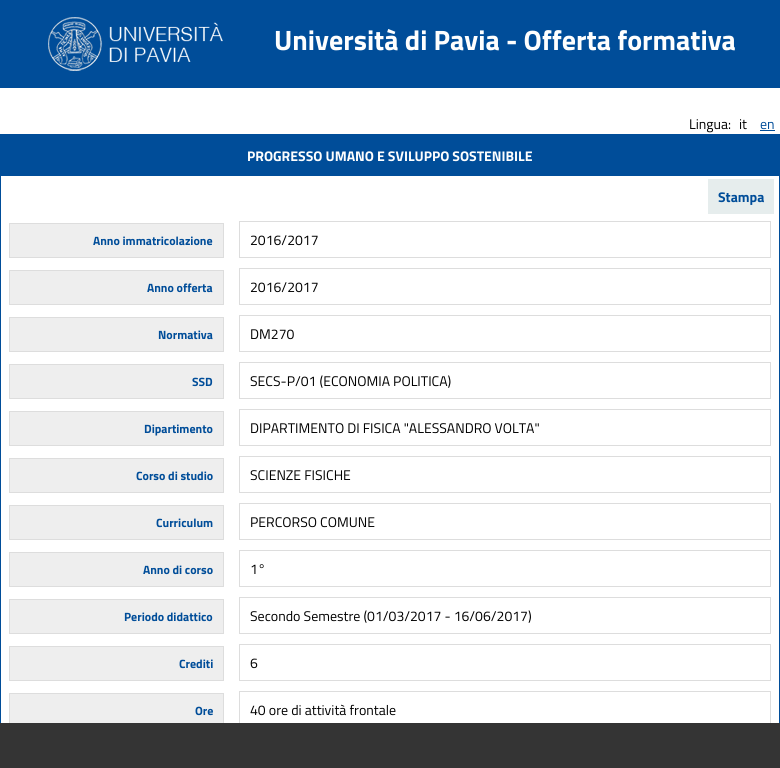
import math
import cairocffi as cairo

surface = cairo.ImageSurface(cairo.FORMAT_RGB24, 780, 768)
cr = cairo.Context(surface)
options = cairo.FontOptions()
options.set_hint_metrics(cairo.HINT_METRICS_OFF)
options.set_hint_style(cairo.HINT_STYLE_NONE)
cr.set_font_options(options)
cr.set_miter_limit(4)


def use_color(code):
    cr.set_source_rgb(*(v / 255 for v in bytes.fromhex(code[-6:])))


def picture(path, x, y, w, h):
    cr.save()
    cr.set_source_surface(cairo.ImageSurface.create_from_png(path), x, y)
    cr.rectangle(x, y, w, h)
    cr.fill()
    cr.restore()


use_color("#ffffff")
cr.paint()
use_color("#004d99")
cr.rectangle(0, 0, 780, 88)
cr.fill()
picture("img1.png", 48, 17, 175, 54)
cr.select_font_face("Titillium Web", cairo.FONT_SLANT_NORMAL, cairo.FONT_WEIGHT_BOLD)
cr.set_font_size(28)
use_color("#fefefe")
cr.move_to(274, 50)
cr.show_text("Università di Pavia - Offerta formativa")
cr.select_font_face("Titillium Web")
cr.set_font_size(14)
use_color("#000000")
cr.move_to(689, 129)
cr.show_text("Lingua:")
cr.move_to(739, 129)
cr.show_text("it")
use_color("#004d99")
cr.move_to(760, 129)
cr.show_text("en")
cr.rectangle(760, 130, 15, 1)
cr.fill()
cr.rectangle(0.5, 134.5, 779, 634)
cr.set_line_width(1)
cr.stroke()
cr.rectangle(1, 135, 778, 41)
cr.fill()
cr.select_font_face("Titillium Web", cairo.FONT_SLANT_NORMAL, cairo.FONT_WEIGHT_BOLD)
use_color("#fefefe")
cr.move_to(247, 161)
cr.show_text("PROGRESSO UMANO E SVILUPPO SOSTENIBILE")
use_color("#e6eded")
cr.rectangle(708, 179, 66, 35)
cr.fill()
use_color("#004d99")
cr.move_to(718, 202)
cr.show_text("Stampa")
use_color("#eeeeee")
cr.rectangle(9.5, 223.5, 214, 34)
cr.fill_preserve()
use_color("#dddddd")
cr.stroke()
cr.set_font_size(12)
use_color("#004d99")
cr.move_to(93, 245)
cr.show_text("Anno immatricolazione")
cr.rectangle(239.5, 221.5, 531, 36)
use_color("#dddddd")
cr.stroke()
cr.select_font_face("Titillium Web")
cr.set_font_size(14)
use_color("#000000")
cr.move_to(250, 245)
cr.show_text("2016/2017")
use_color("#eeeeee")
cr.rectangle(9.5, 270.5, 214, 34)
cr.fill_preserve()
use_color("#dddddd")
cr.stroke()
cr.select_font_face("Titillium Web", cairo.FONT_SLANT_NORMAL, cairo.FONT_WEIGHT_BOLD)
cr.set_font_size(12)
use_color("#004d99")
cr.move_to(147, 292)
cr.show_text("Anno offerta")
cr.rectangle(239.5, 268.5, 531, 36)
use_color("#dddddd")
cr.stroke()
cr.select_font_face("Titillium Web")
cr.set_font_size(14)
use_color("#000000")
cr.move_to(250, 292)
cr.show_text("2016/2017")
use_color("#eeeeee")
cr.rectangle(9.5, 317.5, 214, 34)
cr.fill_preserve()
use_color("#dddddd")
cr.stroke()
cr.select_font_face("Titillium Web", cairo.FONT_SLANT_NORMAL, cairo.FONT_WEIGHT_BOLD)
cr.set_font_size(12)
use_color("#004d99")
cr.move_to(158, 339)
cr.show_text("Normativa")
cr.rectangle(239.5, 315.5, 531, 36)
use_color("#dddddd")
cr.stroke()
cr.select_font_face("Titillium Web")
cr.set_font_size(14)
use_color("#000000")
cr.move_to(250, 339)
cr.show_text("DM270")
use_color("#eeeeee")
cr.rectangle(9.5, 364.5, 214, 34)
cr.fill_preserve()
use_color("#dddddd")
cr.stroke()
cr.select_font_face("Titillium Web", cairo.FONT_SLANT_NORMAL, cairo.FONT_WEIGHT_BOLD)
cr.set_font_size(12)
use_color("#004d99")
cr.move_to(192, 386)
cr.show_text("SSD")
cr.rectangle(239.5, 362.5, 531, 36)
use_color("#dddddd")
cr.stroke()
cr.select_font_face("Titillium Web")
cr.set_font_size(14)
use_color("#000000")
cr.move_to(250, 386)
cr.show_text("SECS-P/01 (ECONOMIA POLITICA)")
use_color("#eeeeee")
cr.rectangle(9.5, 411.5, 214, 34)
cr.fill_preserve()
use_color("#dddddd")
cr.stroke()
cr.select_font_face("Titillium Web", cairo.FONT_SLANT_NORMAL, cairo.FONT_WEIGHT_BOLD)
cr.set_font_size(12)
use_color("#004d99")
cr.move_to(144, 433)
cr.show_text("Dipartimento")
cr.rectangle(239.5, 409.5, 531, 36)
use_color("#dddddd")
cr.stroke()
cr.select_font_face("Titillium Web")
cr.set_font_size(14)
use_color("#000000")
cr.move_to(250, 433)
cr.show_text("DIPARTIMENTO DI FISICA \"ALESSANDRO VOLTA\"")
use_color("#eeeeee")
cr.rectangle(9.5, 458.5, 214, 34)
cr.fill_preserve()
use_color("#dddddd")
cr.stroke()
cr.select_font_face("Titillium Web", cairo.FONT_SLANT_NORMAL, cairo.FONT_WEIGHT_BOLD)
cr.set_font_size(12)
use_color("#004d99")
cr.move_to(136, 480)
cr.show_text("Corso di studio")
cr.rectangle(239.5, 456.5, 531, 36)
use_color("#dddddd")
cr.stroke()
cr.select_font_face("Titillium Web")
cr.set_font_size(14)
use_color("#000000")
cr.move_to(250, 480)
cr.show_text("SCIENZE FISICHE")
use_color("#eeeeee")
cr.rectangle(9.5, 505.5, 214, 34)
cr.fill_preserve()
use_color("#dddddd")
cr.stroke()
cr.select_font_face("Titillium Web", cairo.FONT_SLANT_NORMAL, cairo.FONT_WEIGHT_BOLD)
cr.set_font_size(12)
use_color("#004d99")
cr.move_to(156, 527)
cr.show_text("Curriculum")
cr.rectangle(239.5, 503.5, 531, 36)
use_color("#dddddd")
cr.stroke()
cr.select_font_face("Titillium Web")
cr.set_font_size(14)
use_color("#000000")
cr.move_to(250, 527)
cr.show_text("PERCORSO COMUNE")
use_color("#eeeeee")
cr.rectangle(9.5, 552.5, 214, 34)
cr.fill_preserve()
use_color("#dddddd")
cr.stroke()
cr.select_font_face("Titillium Web", cairo.FONT_SLANT_NORMAL, cairo.FONT_WEIGHT_BOLD)
cr.set_font_size(12)
use_color("#004d99")
cr.move_to(143, 574)
cr.show_text("Anno di corso")
cr.rectangle(239.5, 550.5, 531, 36)
use_color("#dddddd")
cr.stroke()
cr.select_font_face("Titillium Web")
cr.set_font_size(14)
use_color("#000000")
cr.move_to(250, 574)
cr.show_text("1°")
use_color("#eeeeee")
cr.rectangle(9.5, 599.5, 214, 34)
cr.fill_preserve()
use_color("#dddddd")
cr.stroke()
cr.select_font_face("Titillium Web", cairo.FONT_SLANT_NORMAL, cairo.FONT_WEIGHT_BOLD)
cr.set_font_size(12)
use_color("#004d99")
cr.move_to(124, 621)
cr.show_text("Periodo didattico")
cr.rectangle(239.5, 597.5, 531, 36)
use_color("#dddddd")
cr.stroke()
cr.select_font_face("Titillium Web")
cr.set_font_size(14)
use_color("#000000")
cr.move_to(250, 621)
cr.show_text("Secondo Semestre (01/03/2017 - 16/06/2017)")
use_color("#eeeeee")
cr.rectangle(9.5, 646.5, 214, 34)
cr.fill_preserve()
use_color("#dddddd")
cr.stroke()
cr.select_font_face("Titillium Web", cairo.FONT_SLANT_NORMAL, cairo.FONT_WEIGHT_BOLD)
cr.set_font_size(12)
use_color("#004d99")
cr.move_to(179, 668)
cr.show_text("Crediti")
cr.rectangle(239.5, 644.5, 531, 36)
use_color("#dddddd")
cr.stroke()
cr.select_font_face("Titillium Web")
cr.set_font_size(14)
use_color("#000000")
cr.move_to(250, 668)
cr.show_text("6")
use_color("#eeeeee")
cr.rectangle(10, 694, 213, 29)
cr.fill()
cr.rectangle(9.5, 693.5, 214, 34)
use_color("#dddddd")
cr.stroke()
cr.select_font_face("Titillium Web", cairo.FONT_SLANT_NORMAL, cairo.FONT_WEIGHT_BOLD)
cr.set_font_size(12)
use_color("#004d99")
cr.move_to(195, 715)
cr.show_text("Ore")
cr.rectangle(239.5, 691.5, 531, 36)
use_color("#dddddd")
cr.stroke()
cr.select_font_face("Titillium Web")
cr.set_font_size(14)
use_color("#000000")
cr.move_to(250, 715)
cr.show_text("40 ore di attività frontale")
use_color("#343434")
cr.rectangle(0, 723, 780, 45)
cr.fill()
surface.write_to_png("result.png")
